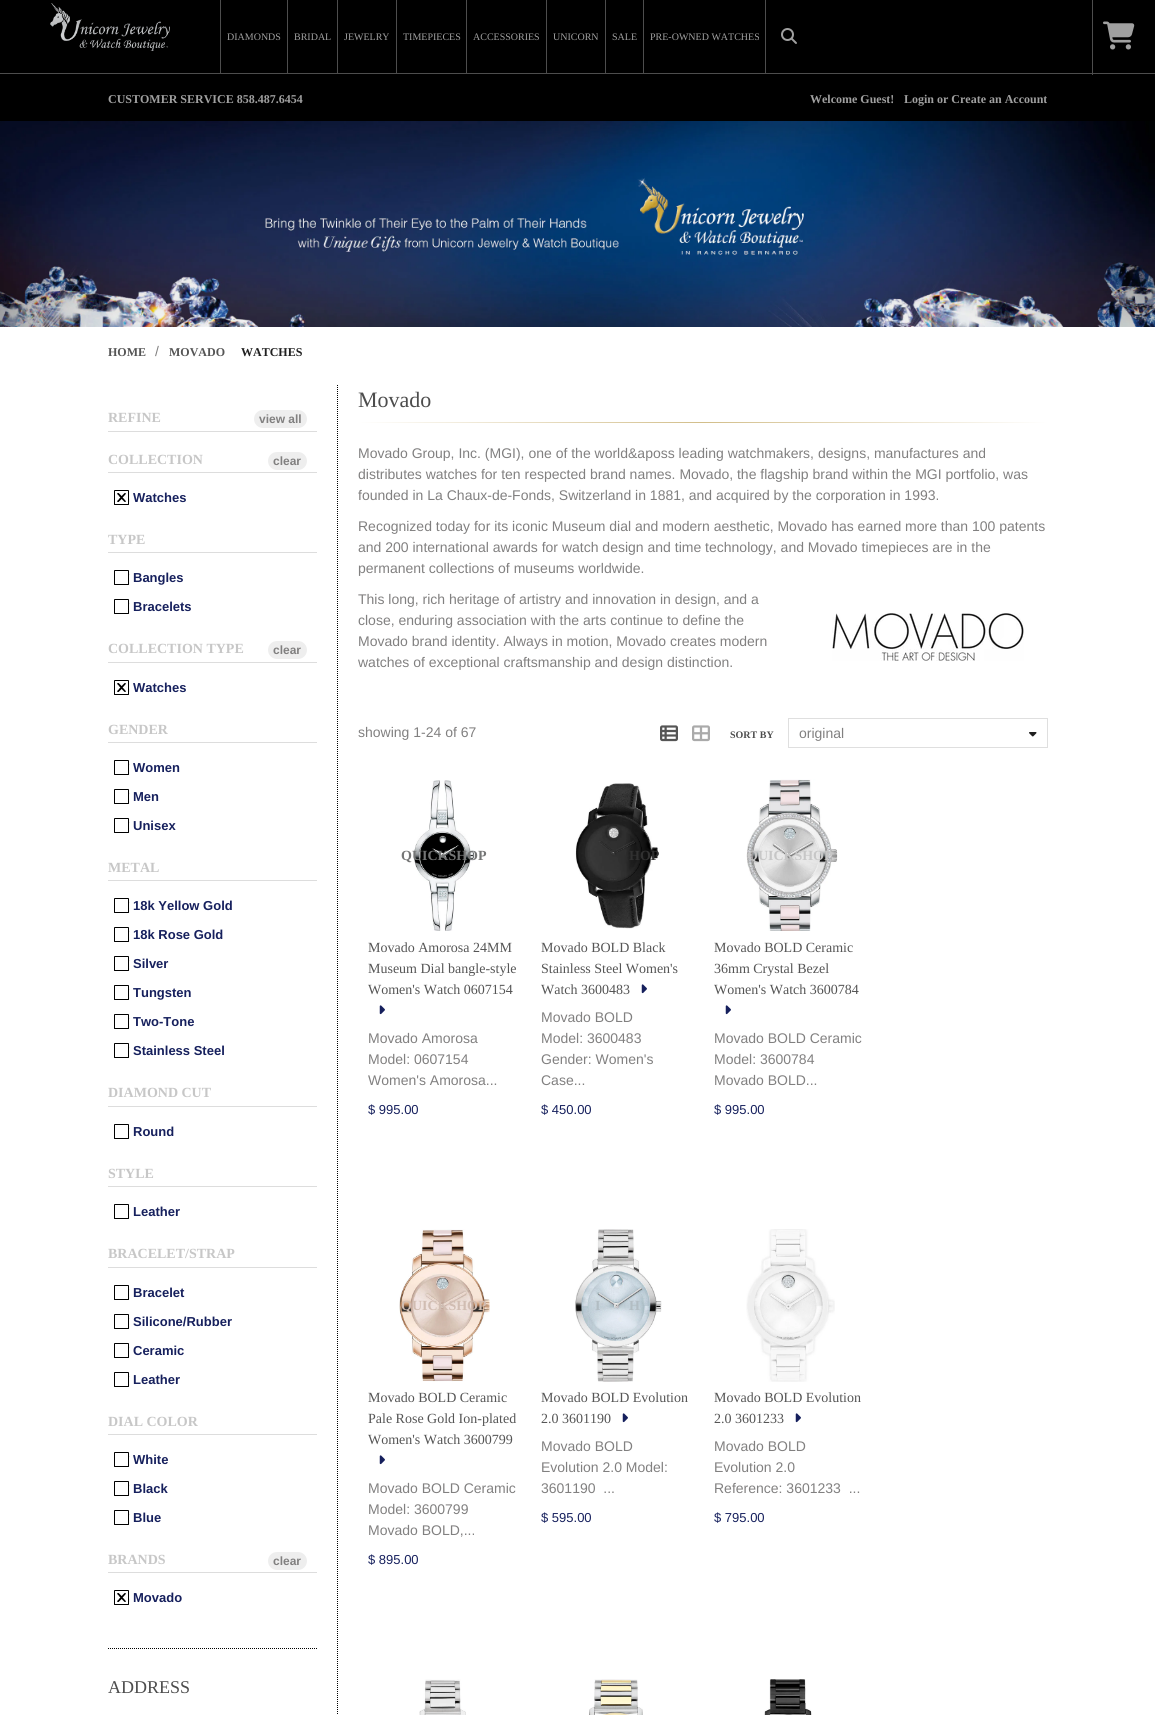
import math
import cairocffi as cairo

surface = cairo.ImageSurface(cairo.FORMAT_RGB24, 1155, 1715)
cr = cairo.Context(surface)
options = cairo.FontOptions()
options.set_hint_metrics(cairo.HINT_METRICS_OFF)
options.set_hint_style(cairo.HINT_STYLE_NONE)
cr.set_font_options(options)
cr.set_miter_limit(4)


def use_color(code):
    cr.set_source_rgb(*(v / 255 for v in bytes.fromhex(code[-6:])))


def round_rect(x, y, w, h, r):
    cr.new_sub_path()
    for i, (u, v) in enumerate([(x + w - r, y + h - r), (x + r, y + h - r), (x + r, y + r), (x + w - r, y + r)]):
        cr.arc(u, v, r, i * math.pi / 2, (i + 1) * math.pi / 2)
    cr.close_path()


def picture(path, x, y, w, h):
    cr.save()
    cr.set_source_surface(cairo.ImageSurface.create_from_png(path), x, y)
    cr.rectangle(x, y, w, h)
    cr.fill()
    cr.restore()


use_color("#000000")
cr.paint()
use_color("#4d4d4d")
cr.rectangle(0, 73, 1155, 1)
cr.fill()
picture("img1.png", 50, 3, 120, 48)
cr.rectangle(287, 0, 1, 74)
cr.fill()
cr.rectangle(220, 0, 1, 74)
cr.fill()
cr.select_font_face("Liberation Serif")
cr.set_font_size(10)
use_color("#a0a0a0")
cr.move_to(227, 40)
cr.show_text("DIAMONDS")
use_color("#4d4d4d")
cr.rectangle(337, 0, 1, 74)
cr.fill()
use_color("#a0a0a0")
cr.move_to(294, 40)
cr.show_text("BRIDAL")
use_color("#4d4d4d")
cr.rectangle(396, 0, 1, 74)
cr.fill()
use_color("#a0a0a0")
cr.move_to(344, 40)
cr.show_text("JEWELRY")
use_color("#4d4d4d")
cr.rectangle(466, 0, 1, 74)
cr.fill()
use_color("#a0a0a0")
cr.move_to(403, 40)
cr.show_text("TIMEPIECES")
use_color("#4d4d4d")
cr.rectangle(546, 0, 1, 74)
cr.fill()
use_color("#a0a0a0")
cr.move_to(473, 40)
cr.show_text("ACCESSORIES")
use_color("#4d4d4d")
cr.rectangle(605, 0, 1, 74)
cr.fill()
use_color("#a0a0a0")
cr.move_to(553, 40)
cr.show_text("UNICORN")
use_color("#4d4d4d")
cr.rectangle(643, 0, 1, 74)
cr.fill()
use_color("#a0a0a0")
cr.move_to(612, 40)
cr.show_text("SALE")
use_color("#4d4d4d")
cr.rectangle(765, 0, 1, 74)
cr.fill()
use_color("#a0a0a0")
cr.move_to(650, 40)
cr.show_text("PRE-OWNED WATCHES")
picture("img2.png", 781, 28, 16, 16)
use_color("#4d4d4d")
cr.rectangle(1092, 0, 1, 75)
cr.fill()
picture("img3.png", 1103, 21, 32, 29)
use_color("#ffffff")
cr.rectangle(0, 327, 1155, 1388)
cr.fill()
cr.select_font_face("Liberation Serif", cairo.FONT_SLANT_NORMAL, cairo.FONT_WEIGHT_BOLD)
cr.set_font_size(12)
use_color("#a0a0a0")
cr.move_to(108, 103)
cr.show_text("CUSTOMER SERVICE 858.487.6454")
cr.move_to(810, 103)
cr.show_text("Welcome Guest!")
cr.move_to(904, 103)
cr.show_text("Login")
cr.move_to(937, 103)
cr.show_text("or Create an Account")
picture("img4.png", 0, 121, 1155, 206)
use_color("#555555")
cr.move_to(108, 356)
cr.show_text("HOME")
cr.select_font_face("Liberation Sans")
cr.set_font_size(14)
use_color("#818080")
cr.move_to(155, 356)
cr.show_text("/")
cr.select_font_face("Liberation Serif", cairo.FONT_SLANT_NORMAL, cairo.FONT_WEIGHT_BOLD)
cr.set_font_size(12)
use_color("#555555")
cr.move_to(169, 356)
cr.show_text("MOVADO")
use_color("#202020")
cr.move_to(241, 356)
cr.show_text("WATCHES")
cr.new_path()
cr.move_to(337.5, 385)
cr.line_to(337.5, 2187)
use_color("#000000")
cr.set_line_width(1)
cr.set_dash([1, 1])
cr.stroke()
use_color("#dddddd")
cr.rectangle(108, 431, 209, 1)
cr.fill()
cr.set_font_size(14)
use_color("#c7c7c7")
cr.move_to(108, 422)
cr.show_text("REFINE")
use_color("#eeeeee")
round_rect(254, 410, 53, 18, 9)
cr.fill()
cr.select_font_face("Liberation Sans", cairo.FONT_SLANT_NORMAL, cairo.FONT_WEIGHT_BOLD)
cr.set_font_size(12)
use_color("#818080")
cr.move_to(259, 423)
cr.show_text("view all")
use_color("#dddddd")
cr.rectangle(108, 472, 209, 1)
cr.fill()
cr.select_font_face("Liberation Serif", cairo.FONT_SLANT_NORMAL, cairo.FONT_WEIGHT_BOLD)
cr.set_font_size(14)
use_color("#c7c7c7")
cr.move_to(108, 464)
cr.show_text("COLLECTION")
use_color("#eeeeee")
round_rect(268, 452, 39, 18, 9)
cr.fill()
cr.select_font_face("Liberation Sans", cairo.FONT_SLANT_NORMAL, cairo.FONT_WEIGHT_BOLD)
cr.set_font_size(12)
use_color("#818080")
cr.move_to(273, 465)
cr.show_text("clear")
picture("img5.png", 114, 490, 16, 15)
cr.set_font_size(13)
use_color("#16205d")
cr.move_to(133, 502)
cr.show_text("Watches")
use_color("#dddddd")
cr.rectangle(108, 552, 209, 1)
cr.fill()
cr.select_font_face("Liberation Serif", cairo.FONT_SLANT_NORMAL, cairo.FONT_WEIGHT_BOLD)
cr.set_font_size(14)
use_color("#c7c7c7")
cr.move_to(108, 544)
cr.show_text("TYPE")
picture("img6.png", 114, 570, 16, 15)
cr.select_font_face("Liberation Sans", cairo.FONT_SLANT_NORMAL, cairo.FONT_WEIGHT_BOLD)
cr.set_font_size(13)
use_color("#16205d")
cr.move_to(133, 582)
cr.show_text("Bangles")
picture("img6.png", 114, 599, 16, 15)
cr.move_to(133, 611)
cr.show_text("Bracelets")
use_color("#dddddd")
cr.rectangle(108, 662, 209, 1)
cr.fill()
cr.select_font_face("Liberation Serif", cairo.FONT_SLANT_NORMAL, cairo.FONT_WEIGHT_BOLD)
cr.set_font_size(14)
use_color("#c7c7c7")
cr.move_to(108, 653)
cr.show_text("COLLECTION TYPE")
use_color("#eeeeee")
round_rect(268, 641, 39, 18, 9)
cr.fill()
cr.select_font_face("Liberation Sans", cairo.FONT_SLANT_NORMAL, cairo.FONT_WEIGHT_BOLD)
cr.set_font_size(12)
use_color("#818080")
cr.move_to(273, 654)
cr.show_text("clear")
picture("img5.png", 114, 680, 16, 15)
cr.set_font_size(13)
use_color("#16205d")
cr.move_to(133, 692)
cr.show_text("Watches")
use_color("#dddddd")
cr.rectangle(108, 742, 209, 1)
cr.fill()
cr.select_font_face("Liberation Serif", cairo.FONT_SLANT_NORMAL, cairo.FONT_WEIGHT_BOLD)
cr.set_font_size(14)
use_color("#c7c7c7")
cr.move_to(108, 734)
cr.show_text("GENDER")
picture("img6.png", 114, 760, 16, 15)
cr.select_font_face("Liberation Sans", cairo.FONT_SLANT_NORMAL, cairo.FONT_WEIGHT_BOLD)
cr.set_font_size(13)
use_color("#16205d")
cr.move_to(133, 772)
cr.show_text("Women")
picture("img6.png", 114, 789, 16, 15)
cr.move_to(133, 801)
cr.show_text("Men")
picture("img6.png", 114, 818, 16, 15)
cr.move_to(133, 830)
cr.show_text("Unisex")
use_color("#dddddd")
cr.rectangle(108, 880, 209, 1)
cr.fill()
cr.select_font_face("Liberation Serif", cairo.FONT_SLANT_NORMAL, cairo.FONT_WEIGHT_BOLD)
cr.set_font_size(14)
use_color("#c7c7c7")
cr.move_to(108, 872)
cr.show_text("METAL")
picture("img6.png", 114, 898, 16, 15)
cr.select_font_face("Liberation Sans", cairo.FONT_SLANT_NORMAL, cairo.FONT_WEIGHT_BOLD)
cr.set_font_size(13)
use_color("#16205d")
cr.move_to(133, 910)
cr.show_text("18k Yellow Gold")
picture("img6.png", 114, 927, 16, 15)
cr.move_to(133, 939)
cr.show_text("18k Rose Gold")
picture("img6.png", 114, 956, 16, 15)
cr.move_to(133, 968)
cr.show_text("Silver")
picture("img6.png", 114, 985, 16, 15)
cr.move_to(133, 997)
cr.show_text("Tungsten")
picture("img6.png", 114, 1014, 16, 15)
cr.move_to(133, 1026)
cr.show_text("Two-Tone")
picture("img6.png", 114, 1043, 16, 15)
cr.move_to(133, 1055)
cr.show_text("Stainless Steel")
use_color("#dddddd")
cr.rectangle(108, 1106, 209, 1)
cr.fill()
cr.select_font_face("Liberation Serif", cairo.FONT_SLANT_NORMAL, cairo.FONT_WEIGHT_BOLD)
cr.set_font_size(14)
use_color("#c7c7c7")
cr.move_to(108, 1097)
cr.show_text("DIAMOND CUT")
picture("img6.png", 114, 1124, 16, 15)
cr.select_font_face("Liberation Sans", cairo.FONT_SLANT_NORMAL, cairo.FONT_WEIGHT_BOLD)
cr.set_font_size(13)
use_color("#16205d")
cr.move_to(133, 1136)
cr.show_text("Round")
use_color("#dddddd")
cr.rectangle(108, 1186, 209, 1)
cr.fill()
cr.select_font_face("Liberation Serif", cairo.FONT_SLANT_NORMAL, cairo.FONT_WEIGHT_BOLD)
cr.set_font_size(14)
use_color("#c7c7c7")
cr.move_to(108, 1178)
cr.show_text("STYLE")
picture("img6.png", 114, 1204, 16, 15)
cr.select_font_face("Liberation Sans", cairo.FONT_SLANT_NORMAL, cairo.FONT_WEIGHT_BOLD)
cr.set_font_size(13)
use_color("#16205d")
cr.move_to(133, 1216)
cr.show_text("Leather")
use_color("#dddddd")
cr.rectangle(108, 1267, 209, 1)
cr.fill()
cr.select_font_face("Liberation Serif", cairo.FONT_SLANT_NORMAL, cairo.FONT_WEIGHT_BOLD)
cr.set_font_size(14)
use_color("#c7c7c7")
cr.move_to(108, 1258)
cr.show_text("BRACELET/STRAP")
picture("img6.png", 114, 1285, 16, 15)
cr.select_font_face("Liberation Sans", cairo.FONT_SLANT_NORMAL, cairo.FONT_WEIGHT_BOLD)
cr.set_font_size(13)
use_color("#16205d")
cr.move_to(133, 1297)
cr.show_text("Bracelet")
picture("img6.png", 114, 1314, 16, 15)
cr.move_to(133, 1326)
cr.show_text("Silicone/Rubber")
picture("img6.png", 114, 1343, 16, 15)
cr.move_to(133, 1355)
cr.show_text("Ceramic")
picture("img6.png", 114, 1372, 16, 15)
cr.move_to(133, 1384)
cr.show_text("Leather")
use_color("#dddddd")
cr.rectangle(108, 1434, 209, 1)
cr.fill()
cr.select_font_face("Liberation Serif", cairo.FONT_SLANT_NORMAL, cairo.FONT_WEIGHT_BOLD)
cr.set_font_size(14)
use_color("#c7c7c7")
cr.move_to(108, 1426)
cr.show_text("DIAL COLOR")
picture("img6.png", 114, 1452, 16, 15)
cr.select_font_face("Liberation Sans", cairo.FONT_SLANT_NORMAL, cairo.FONT_WEIGHT_BOLD)
cr.set_font_size(13)
use_color("#16205d")
cr.move_to(133, 1464)
cr.show_text("White")
picture("img6.png", 114, 1481, 16, 15)
cr.move_to(133, 1493)
cr.show_text("Black")
picture("img6.png", 114, 1510, 16, 15)
cr.move_to(133, 1522)
cr.show_text("Blue")
use_color("#dddddd")
cr.rectangle(108, 1572, 209, 1)
cr.fill()
cr.select_font_face("Liberation Serif", cairo.FONT_SLANT_NORMAL, cairo.FONT_WEIGHT_BOLD)
cr.set_font_size(14)
use_color("#c7c7c7")
cr.move_to(108, 1564)
cr.show_text("BRANDS")
use_color("#eeeeee")
round_rect(268, 1552, 39, 18, 9)
cr.fill()
cr.select_font_face("Liberation Sans", cairo.FONT_SLANT_NORMAL, cairo.FONT_WEIGHT_BOLD)
cr.set_font_size(12)
use_color("#818080")
cr.move_to(273, 1565)
cr.show_text("clear")
picture("img5.png", 114, 1590, 16, 15)
cr.set_font_size(13)
use_color("#16205d")
cr.move_to(133, 1602)
cr.show_text("Movado")
cr.new_path()
cr.move_to(108, 1648.5)
cr.line_to(317, 1648.5)
use_color("#000000")
cr.stroke()
cr.select_font_face("Liberation Serif")
cr.set_font_size(18)
use_color("#4d4d4d")
cr.move_to(108, 1693)
cr.show_text("ADDRESS")
cr.set_font_size(22)
cr.move_to(358, 407)
cr.show_text("Movado")
gradient = cairo.LinearGradient(358, 423, 1048, 423)
gradient.add_color_stop_rgba(0, 1, 1, 1, 1)
gradient.add_color_stop_rgba(0.5, 0.824, 0.745, 0.541, 1)
gradient.add_color_stop_rgba(1, 1, 1, 1, 1)
cr.set_source(gradient)
cr.rectangle(358, 422, 690, 1)
cr.fill()
cr.select_font_face("Liberation Sans")
cr.set_font_size(14)
use_color("#818080")
cr.move_to(358, 458)
cr.show_text("Movado Group, Inc. (MGI), one of the world&aposs leading watchmakers, designs, manufactures and")
cr.move_to(358, 479)
cr.show_text("distributes watches for ten respected brand names. Movado, the flagship brand within the MGI portfolio, was")
cr.move_to(358, 500)
cr.show_text("founded in La Chaux-de-Fonds, Switzerland in 1881, and acquired by the corporation in 1993.")
cr.move_to(358, 531)
cr.show_text("Recognized today for its iconic Museum dial and modern aesthetic, Movado has earned more than 100 patents")
cr.move_to(358, 552)
cr.show_text("and 200 international awards for watch design and time technology, and Movado timepieces are in the")
cr.move_to(358, 573)
cr.show_text("permanent collections of museums worldwide.")
cr.move_to(358, 604)
cr.show_text("This long, rich heritage of artistry and innovation in design, and a")
cr.move_to(358, 625)
cr.show_text("close, enduring association with the arts continue to define the")
cr.move_to(358, 646)
cr.show_text("Movado brand identity. Always in motion, Movado creates modern")
cr.move_to(358, 667)
cr.show_text("watches of exceptional craftsmanship and design distinction.")
picture("img7.png", 832, 613, 192, 48)
cr.move_to(358, 737)
cr.show_text("showing 1-24 of 67")
picture("img8.png", 660, 725, 18, 17)
picture("img9.png", 692, 725, 18, 17)
cr.select_font_face("Liberation Serif", cairo.FONT_SLANT_NORMAL, cairo.FONT_WEIGHT_BOLD)
cr.set_font_size(10)
use_color("#4d4d4d")
cr.move_to(730, 738)
cr.show_text("SORT BY")
cr.rectangle(788.5, 718.5, 259, 29)
use_color("#dfdfdf")
cr.set_dash([])
cr.stroke()
cr.select_font_face("Liberation Sans")
cr.set_font_size(14)
use_color("#818080")
cr.move_to(799, 738)
cr.show_text("original")
picture("img10.png", 1029, 732, 8, 5)
picture("img11.png", 413, 780, 62, 151)
cr.select_font_face("Liberation Serif", cairo.FONT_SLANT_NORMAL, cairo.FONT_WEIGHT_BOLD)
use_color("#747575")
cr.move_to(401, 860)
cr.show_text("QUICKSHOP")
cr.select_font_face("Liberation Serif")
use_color("#555555")
cr.move_to(368, 952)
cr.show_text("Movado Amorosa 24MM")
cr.move_to(368, 973)
cr.show_text("Museum Dial bangle-style")
cr.move_to(368, 994)
cr.show_text("Women's Watch 0607154")
picture("img12.png", 379, 1005, 6, 10)
cr.select_font_face("Liberation Sans")
use_color("#818080")
cr.move_to(368, 1043)
cr.show_text("Movado Amorosa")
cr.move_to(368, 1064)
cr.show_text("Model: 0607154")
cr.move_to(368, 1085)
cr.show_text("Women's Amorosa...")
cr.set_font_size(13)
use_color("#16205d")
cr.move_to(368, 1114)
cr.show_text("$ 995.00")
picture("img13.png", 575, 783, 83, 146)
cr.select_font_face("Liberation Serif", cairo.FONT_SLANT_NORMAL, cairo.FONT_WEIGHT_BOLD)
cr.set_font_size(14)
use_color("#313131")
cr.move_to(629, 860)
cr.show_text("HOP")
cr.select_font_face("Liberation Serif")
use_color("#555555")
cr.move_to(541, 952)
cr.show_text("Movado BOLD Black")
cr.move_to(541, 973)
cr.show_text("Stainless Steel Women's")
cr.move_to(541, 994)
cr.show_text("Watch 3600483")
picture("img12.png", 641, 984, 6, 10)
cr.select_font_face("Liberation Sans")
use_color("#818080")
cr.move_to(541, 1022)
cr.show_text("Movado BOLD")
cr.move_to(541, 1043)
cr.show_text("Model: 3600483")
cr.move_to(541, 1064)
cr.show_text("Gender: Women's")
cr.move_to(541, 1085)
cr.show_text("Case...")
cr.set_font_size(13)
use_color("#16205d")
cr.move_to(541, 1114)
cr.show_text("$ 450.00")
picture("img14.png", 746, 779, 92, 152)
cr.select_font_face("Liberation Serif", cairo.FONT_SLANT_NORMAL, cairo.FONT_WEIGHT_BOLD)
cr.set_font_size(14)
use_color("#c7c7c7")
cr.move_to(747, 860)
cr.show_text("QUICKSHOP")
cr.select_font_face("Liberation Serif")
use_color("#555555")
cr.move_to(714, 952)
cr.show_text("Movado BOLD Ceramic")
cr.move_to(714, 973)
cr.show_text("36mm Crystal Bezel")
cr.move_to(714, 994)
cr.show_text("Women's Watch 3600784")
picture("img12.png", 725, 1005, 6, 10)
cr.select_font_face("Liberation Sans")
use_color("#818080")
cr.move_to(714, 1043)
cr.show_text("Movado BOLD Ceramic")
cr.move_to(714, 1064)
cr.show_text("Model: 3600784")
cr.move_to(714, 1085)
cr.show_text("Movado BOLD...")
cr.set_font_size(13)
use_color("#16205d")
cr.move_to(714, 1114)
cr.show_text("$ 995.00")
picture("img15.png", 399, 1229, 91, 153)
cr.select_font_face("Liberation Serif", cairo.FONT_SLANT_NORMAL, cairo.FONT_WEIGHT_BOLD)
cr.set_font_size(14)
use_color("#d1bdb2")
cr.move_to(401, 1310)
cr.show_text("QUICKSHOP")
cr.select_font_face("Liberation Serif")
use_color("#555555")
cr.move_to(368, 1402)
cr.show_text("Movado BOLD Ceramic")
cr.move_to(368, 1423)
cr.show_text("Pale Rose Gold Ion-plated")
cr.move_to(368, 1444)
cr.show_text("Women's Watch 3600799")
picture("img12.png", 379, 1455, 6, 10)
cr.select_font_face("Liberation Sans")
use_color("#818080")
cr.move_to(368, 1493)
cr.show_text("Movado BOLD Ceramic")
cr.move_to(368, 1514)
cr.show_text("Model: 3600799")
cr.move_to(368, 1535)
cr.show_text("Movado BOLD,...")
cr.set_font_size(13)
use_color("#16205d")
cr.move_to(368, 1564)
cr.show_text("$ 895.00")
picture("img16.png", 575, 1229, 87, 153)
cr.select_font_face("Liberation Serif", cairo.FONT_SLANT_NORMAL, cairo.FONT_WEIGHT_BOLD)
cr.set_font_size(14)
use_color("#b2bdc3")
cr.move_to(595, 1310)
cr.show_text("I")
cr.move_to(629, 1310)
cr.show_text("H")
cr.select_font_face("Liberation Serif")
use_color("#555555")
cr.move_to(541, 1402)
cr.show_text("Movado BOLD Evolution")
cr.move_to(541, 1423)
cr.show_text("2.0 3601190")
picture("img12.png", 622, 1413, 6, 10)
cr.select_font_face("Liberation Sans")
use_color("#818080")
cr.move_to(541, 1451)
cr.show_text("Movado BOLD")
cr.move_to(541, 1472)
cr.show_text("Evolution 2.0 Model:")
cr.move_to(541, 1493)
cr.show_text("3601190  ...")
cr.set_font_size(13)
use_color("#16205d")
cr.move_to(541, 1522)
cr.show_text("$ 595.00")
picture("img17.png", 746, 1229, 89, 153)
cr.select_font_face("Liberation Serif")
cr.set_font_size(14)
use_color("#555555")
cr.move_to(714, 1402)
cr.show_text("Movado BOLD Evolution")
cr.move_to(714, 1423)
cr.show_text("2.0 3601233")
picture("img12.png", 795, 1413, 6, 10)
cr.select_font_face("Liberation Sans")
use_color("#818080")
cr.move_to(714, 1451)
cr.show_text("Movado BOLD")
cr.move_to(714, 1472)
cr.show_text("Evolution 2.0")
cr.move_to(714, 1493)
cr.show_text("Reference: 3601233  ...")
cr.set_font_size(13)
use_color("#16205d")
cr.move_to(714, 1522)
cr.show_text("$ 795.00")
picture("img18.png", 419, 1679, 47, 36)
picture("img19.png", 589, 1679, 54, 36)
picture("img20.png", 764, 1679, 48, 36)
surface.write_to_png("result.png")
